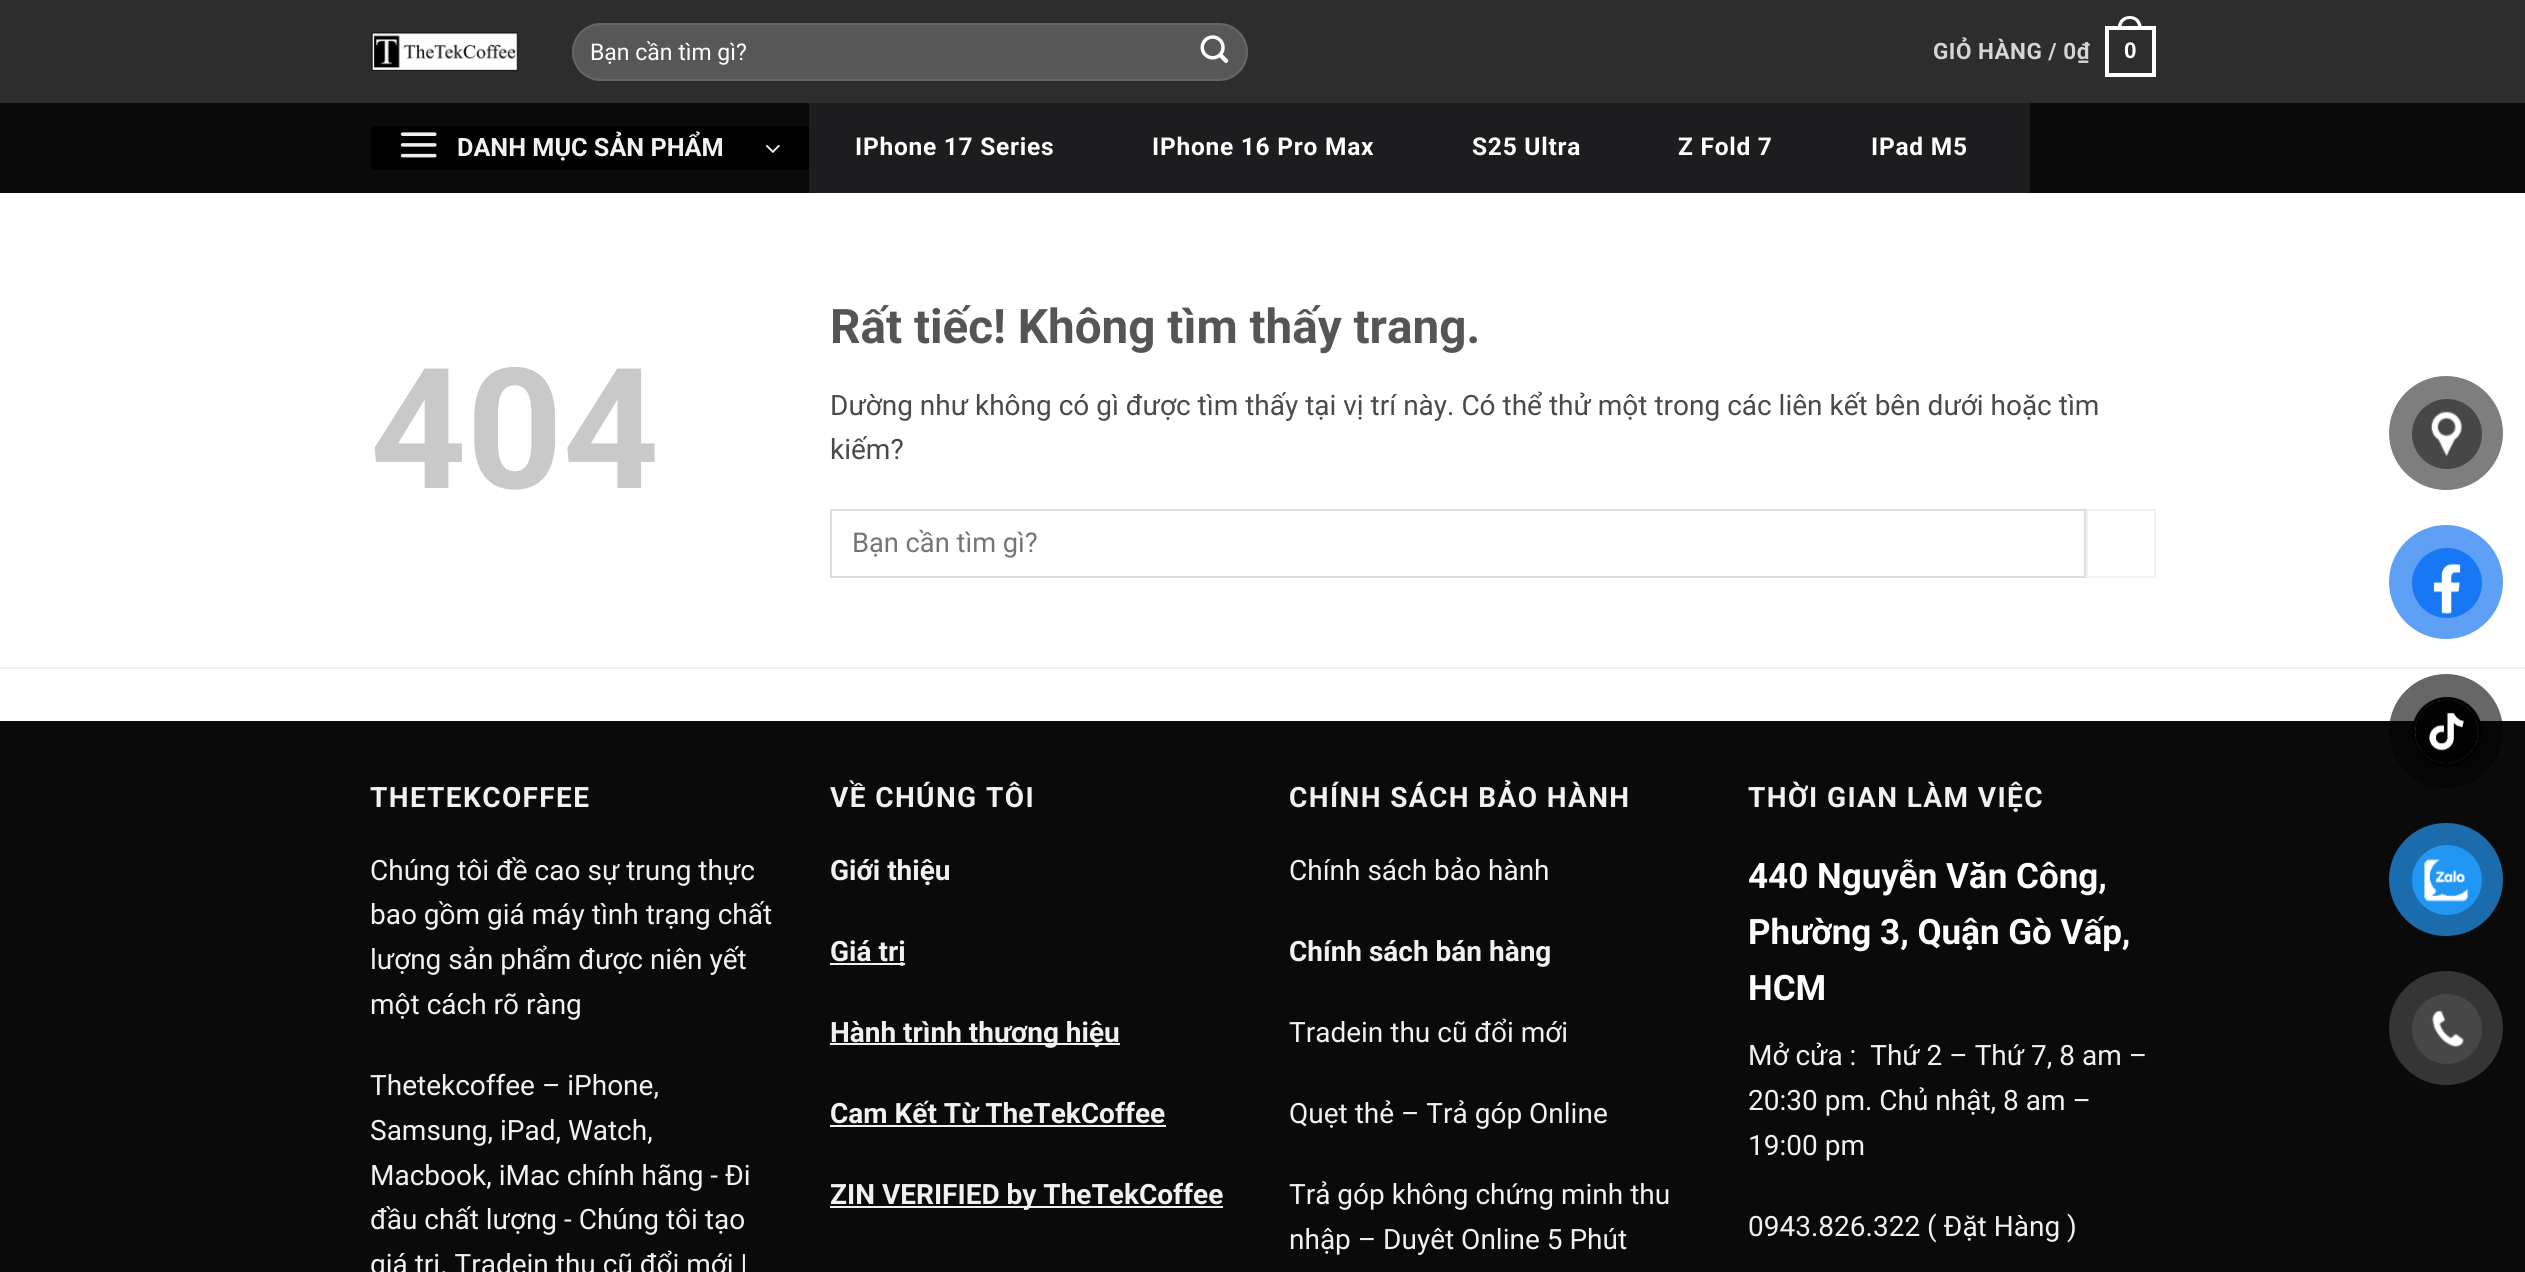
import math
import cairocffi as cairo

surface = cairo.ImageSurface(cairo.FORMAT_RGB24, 2525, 1272)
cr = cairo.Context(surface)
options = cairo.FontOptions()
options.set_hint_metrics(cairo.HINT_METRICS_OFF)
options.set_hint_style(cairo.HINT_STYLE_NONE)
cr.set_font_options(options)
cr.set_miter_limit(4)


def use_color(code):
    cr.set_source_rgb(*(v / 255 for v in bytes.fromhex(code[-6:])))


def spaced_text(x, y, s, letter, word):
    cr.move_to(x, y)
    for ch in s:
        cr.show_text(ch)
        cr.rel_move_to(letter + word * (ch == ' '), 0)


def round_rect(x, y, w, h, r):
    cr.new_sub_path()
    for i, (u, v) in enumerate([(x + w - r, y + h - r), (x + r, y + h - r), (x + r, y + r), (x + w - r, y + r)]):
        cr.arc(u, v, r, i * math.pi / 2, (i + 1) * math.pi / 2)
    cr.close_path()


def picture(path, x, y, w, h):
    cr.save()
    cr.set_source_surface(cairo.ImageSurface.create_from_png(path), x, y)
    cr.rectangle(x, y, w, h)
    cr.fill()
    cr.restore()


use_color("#ffffff")
cr.paint()
use_color("#2d2d2d")
cr.rectangle(0, 0, 2525, 103)
cr.fill()
picture("img1.png", 371, 32, 147, 39)
use_color("#575757")
round_rect(572, 23, 676, 58, 29)
cr.fill()
round_rect(573, 24, 674, 56, 28)
cr.set_source_rgba(1, 1, 1, 0.09)
cr.stroke()
cr.select_font_face("Roboto")
cr.set_font_size(23)
use_color("#ffffff")
cr.move_to(590, 60)
cr.show_text("Bạn cần tìm gì?")
picture("img2.png", 1200, 35, 29, 28)
cr.select_font_face("Roboto", cairo.FONT_SLANT_NORMAL, cairo.FONT_WEIGHT_BOLD)
cr.set_font_size(22.5)
use_color("#d5d5d5")
spaced_text(1933, 59, "GIỎ HÀNG / 0₫", 0.5, 0)
cr.rectangle(2107, 28, 47, 47)
use_color("#ffffff")
cr.set_line_width(4)
cr.stroke()
cr.set_fill_rule(cairo.FILL_RULE_EVEN_ODD)
cr.new_path()
cr.move_to(2130, 16)
cr.curve_to(2138, 16, 2142, 22, 2142, 30)
cr.line_to(2117.5, 30)
cr.curve_to(2117.5, 22, 2121.5, 16, 2130, 16)
cr.close_path()
cr.move_to(2130, 19)
cr.curve_to(2136, 19, 2138.5, 24, 2138.5, 30)
cr.line_to(2121, 30)
cr.curve_to(2121, 24, 2123.5, 19, 2130, 19)
cr.close_path()
cr.fill()
cr.select_font_face("Liberation Sans", cairo.FONT_SLANT_NORMAL, cairo.FONT_WEIGHT_BOLD)
spaced_text(2124, 58, "0", 0.5, 0)
use_color("#0a0a0a")
cr.rectangle(0, 103, 2525, 90)
cr.fill()
use_color("#000000")
cr.rectangle(371, 126, 438, 44)
cr.fill()
picture("img3.png", 400, 132, 37, 26)
cr.select_font_face("Roboto", cairo.FONT_SLANT_NORMAL, cairo.FONT_WEIGHT_BOLD)
cr.set_font_size(25.25)
use_color("#f1f1f1")
cr.move_to(457, 156)
cr.show_text("DANH MỤC SẢN PHẨM")
picture("img4.png", 765, 144, 15, 9)
use_color("#1d1d1f")
cr.rectangle(809, 103, 1221, 90)
cr.fill()
cr.set_font_size(24.5)
use_color("#ffffff")
spaced_text(855, 155, "IPhone 17 Series", 0.75, 0)
spaced_text(1152, 155, "IPhone 16 Pro Max", 0.75, 0)
spaced_text(1472, 155, "S25 Ultra", 0.75, 0)
spaced_text(1678, 155, "Z Fold 7", 0.75, 0)
spaced_text(1871, 155, "IPad M5", 0.75, 0)
cr.set_font_size(168)
use_color("#c9c9c9")
cr.move_to(370, 488)
cr.show_text("404")
cr.set_font_size(47.6)
use_color("#555555")
cr.move_to(830, 343)
cr.show_text("Rất tiếc! Không tìm thấy trang.")
cr.select_font_face("Roboto")
cr.set_font_size(28)
use_color("#4a4a4a")
cr.move_to(830, 415)
cr.show_text("Dường như không có gì được tìm thấy tại vị trí này. Có thể thử một trong các liên kết bên dưới hoặc tìm")
cr.move_to(830, 459)
cr.show_text("kiếm?")
cr.rectangle(831, 510, 1254, 67)
use_color("#dddddd")
cr.set_line_width(2)
cr.stroke()
cr.set_font_size(27.25)
use_color("#757575")
cr.move_to(852, 552)
cr.show_text("Bạn cần tìm gì?")
cr.rectangle(2087, 510, 68, 67)
use_color("#f2f2f2")
cr.stroke()
cr.rectangle(0, 667, 2525, 2)
cr.fill()
use_color("#0a0a0a")
cr.rectangle(0, 721, 2525, 551)
cr.fill()
cr.select_font_face("Roboto", cairo.FONT_SLANT_NORMAL, cairo.FONT_WEIGHT_BOLD)
cr.set_font_size(28)
use_color("#f1f1f1")
spaced_text(370, 807, "THETEKCOFFEE", 1.4, 0)
cr.select_font_face("Roboto")
cr.move_to(370, 880)
cr.show_text("Chúng tôi đề cao sự trung thực")
cr.move_to(370, 924)
cr.show_text("bao gồm giá máy tình trạng chất")
cr.move_to(370, 969)
cr.show_text("lượng sản phẩm được niên yết")
cr.move_to(370, 1014)
cr.show_text("một cách rõ ràng")
cr.move_to(370, 1095)
cr.show_text("Thetekcoffee – iPhone,")
cr.move_to(370, 1140)
cr.show_text("Samsung, iPad, Watch,")
cr.move_to(370, 1185)
cr.show_text("Macbook, iMac chính hãng - Đi")
cr.move_to(370, 1229)
cr.show_text("đầu chất lượng - Chúng tôi tạo")
cr.move_to(370, 1274)
cr.show_text("giá trị. Tradein thu cũ đổi mới |")
cr.select_font_face("Roboto", cairo.FONT_SLANT_NORMAL, cairo.FONT_WEIGHT_BOLD)
spaced_text(830, 807, "VỀ CHÚNG TÔI", 1.4, 0)
cr.move_to(830, 880)
cr.show_text("Giới thiệu")
cr.rectangle(830, 963, 75, 2)
cr.fill()
cr.move_to(830, 961)
cr.show_text("Giá trị")
cr.rectangle(830, 1043, 290, 2)
cr.fill()
cr.move_to(830, 1042)
cr.show_text("Hành trình thương hiệu")
cr.move_to(830, 1123)
cr.show_text("Cam Kết Từ TheTekCoffee")
cr.rectangle(830, 1125, 336, 2)
cr.fill()
cr.rectangle(830, 1206, 393, 2)
cr.fill()
cr.move_to(830, 1204)
cr.show_text("ZIN VERIFIED by TheTekCoffee")
spaced_text(1289, 807, "CHÍNH SÁCH BẢO HÀNH", 1.4, 0)
cr.select_font_face("Roboto")
cr.move_to(1289, 880)
cr.show_text("Chính sách bảo hành")
cr.select_font_face("Roboto", cairo.FONT_SLANT_NORMAL, cairo.FONT_WEIGHT_BOLD)
cr.move_to(1289, 961)
cr.show_text("Chính sách bán hàng")
cr.select_font_face("Roboto")
cr.move_to(1289, 1042)
cr.show_text("Tradein thu cũ đổi mới")
cr.move_to(1289, 1123)
cr.show_text("Quẹt thẻ – Trả góp Online")
cr.move_to(1289, 1204)
cr.show_text("Trả góp không chứng minh thu")
cr.move_to(1289, 1249)
cr.show_text("nhập – Duyêt Online 5 Phút")
cr.select_font_face("Roboto", cairo.FONT_SLANT_NORMAL, cairo.FONT_WEIGHT_BOLD)
spaced_text(1748, 807, "THỜI GIAN LÀM VIỆC", 1.4, 0)
cr.set_font_size(35)
use_color("#ffffff")
cr.move_to(1748, 888)
cr.show_text("440 Nguyễn Văn Công,")
cr.move_to(1748, 944)
cr.show_text("Phường 3, Quận Gò Vấp,")
cr.move_to(1748, 1000)
cr.show_text("HCM")
cr.select_font_face("Roboto")
cr.set_font_size(28)
use_color("#f1f1f1")
cr.move_to(1748, 1065)
cr.show_text("Mở cửa :  Thứ 2 – Thứ 7, 8 am –")
cr.move_to(1748, 1110)
cr.show_text("20:30 pm. Chủ nhật, 8 am –")
cr.move_to(1748, 1155)
cr.show_text("19:00 pm")
cr.move_to(1748, 1236)
cr.show_text("0943.826.322 ( Đặt Hàng )")
use_color("#7e7e7e")
cr.new_path()
cr.arc(2446, 433, 57, 0, 2 * math.pi)
cr.fill()
use_color("#474747")
cr.arc(2447, 434, 35, 0, 2 * math.pi)
cr.fill()
picture("img5.png", 2431, 411, 31, 46)
use_color("#5da0f6")
cr.arc(2446, 582, 57, 0, 2 * math.pi)
cr.fill()
use_color("#1877f2")
cr.arc(2447, 583, 35, 0, 2 * math.pi)
cr.fill()
picture("img6.png", 2433, 563, 28, 51)
cr.set_source_rgba(0.008, 0.008, 0.008, 0.6)
cr.arc(2446, 731, 57, 0, 2 * math.pi)
cr.fill()
use_color("#020202")
cr.arc(2447, 732, 35, 0, 2 * math.pi)
cr.fill()
picture("img7.png", 2415, 699, 63, 65)
use_color("#1a6cad")
round_rect(2389, 823, 114, 113, 56.5)
cr.fill()
use_color("#2196f3")
cr.arc(2447, 880, 35, 0, 2 * math.pi)
cr.fill()
picture("img8.png", 2424, 858, 45, 44)
use_color("#353535")
cr.arc(2446, 1028, 57, 0, 2 * math.pi)
cr.fill()
use_color("#474747")
cr.arc(2447, 1029, 35, 0, 2 * math.pi)
cr.fill()
picture("img9.png", 2431, 1010, 33, 37)
surface.write_to_png("result.png")
